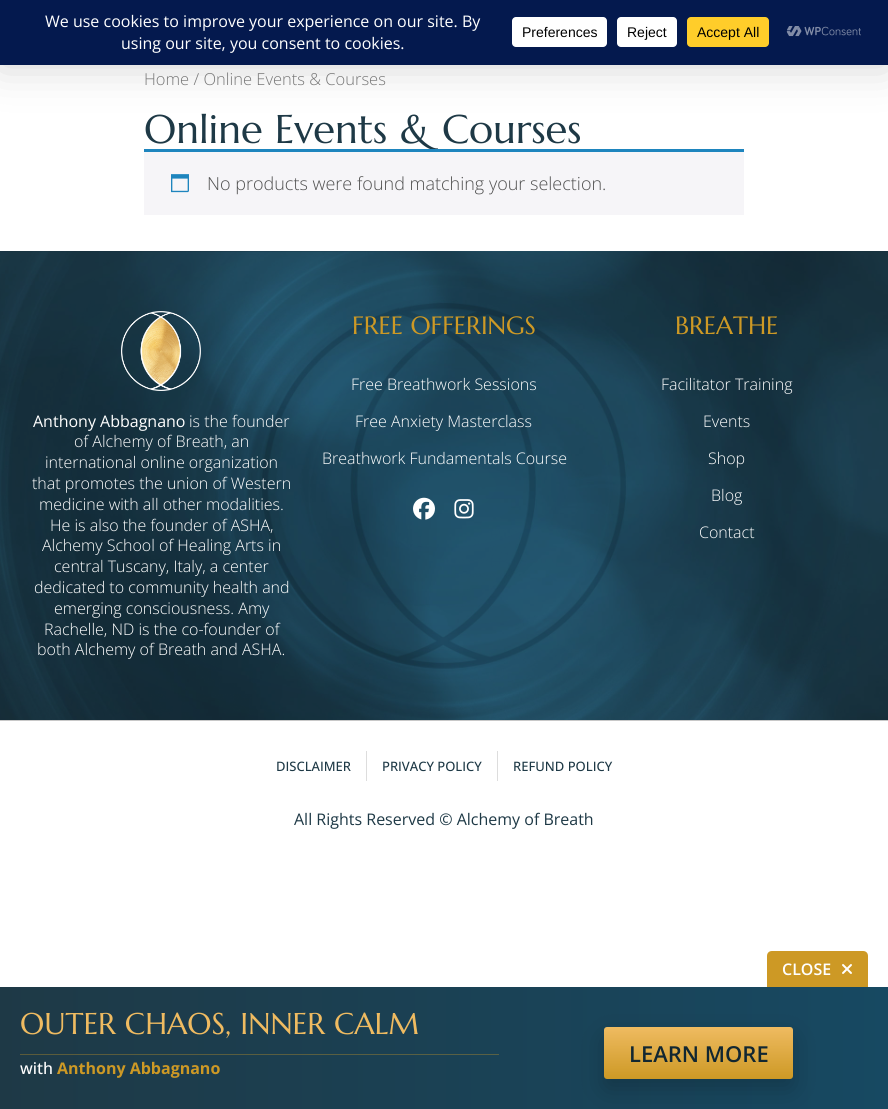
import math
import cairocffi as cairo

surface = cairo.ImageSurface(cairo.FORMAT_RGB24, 888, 1109)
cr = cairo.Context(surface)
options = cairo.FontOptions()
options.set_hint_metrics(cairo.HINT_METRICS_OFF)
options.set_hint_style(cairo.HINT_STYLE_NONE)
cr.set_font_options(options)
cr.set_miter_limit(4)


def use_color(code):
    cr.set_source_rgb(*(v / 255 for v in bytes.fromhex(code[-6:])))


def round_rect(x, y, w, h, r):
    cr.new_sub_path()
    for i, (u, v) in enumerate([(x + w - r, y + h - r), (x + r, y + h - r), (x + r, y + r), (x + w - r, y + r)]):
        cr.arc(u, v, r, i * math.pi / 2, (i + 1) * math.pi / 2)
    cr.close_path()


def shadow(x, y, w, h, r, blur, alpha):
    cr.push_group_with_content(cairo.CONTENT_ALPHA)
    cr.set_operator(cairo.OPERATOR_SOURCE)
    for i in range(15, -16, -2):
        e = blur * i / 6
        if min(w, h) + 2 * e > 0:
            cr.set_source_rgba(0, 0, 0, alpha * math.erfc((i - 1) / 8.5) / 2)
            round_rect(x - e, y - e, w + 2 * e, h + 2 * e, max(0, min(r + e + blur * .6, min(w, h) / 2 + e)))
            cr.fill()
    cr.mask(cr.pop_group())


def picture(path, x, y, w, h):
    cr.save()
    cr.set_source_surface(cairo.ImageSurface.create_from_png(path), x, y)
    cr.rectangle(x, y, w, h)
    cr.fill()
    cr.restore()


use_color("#ffffff")
cr.paint()
use_color("#000000")
shadow(0, 0, 888, 65, 0, 22, 0.18)
use_color("#04194e")
cr.rectangle(0, 0, 888, 65)
cr.fill()
cr.select_font_face("Open Sans")
cr.set_font_size(16)
use_color("#ffffff")
cr.move_to(45, 27)
cr.show_text("We use cookies to improve your experience on our site. By")
cr.move_to(121, 49)
cr.show_text("using our site, you consent to cookies.")
round_rect(512, 17, 95, 30, 4)
cr.fill()
cr.select_font_face("Liberation Sans")
cr.set_font_size(14)
use_color("#000000")
cr.move_to(522, 37)
cr.show_text("Preferences")
use_color("#ffffff")
round_rect(617, 17, 60, 30, 4)
cr.fill()
use_color("#000000")
cr.move_to(627, 37)
cr.show_text("Reject")
use_color("#ffcd2a")
round_rect(687, 17, 82, 30, 4)
cr.fill()
use_color("#000000")
cr.move_to(697, 37)
cr.show_text("Accept All")
picture("img1.png", 786, 26, 75, 11)
cr.select_font_face("Open Sans Light")
cr.set_font_size(16.5)
use_color("#767676")
cr.move_to(144, 85)
cr.show_text("Home / Online Events & Courses")
cr.select_font_face("Marcellus")
cr.set_font_size(40)
use_color("#1e3946")
cr.move_to(144, 143)
cr.show_text("Online Events & Courses")
use_color("#f6f5f8")
cr.rectangle(144, 152, 600, 63)
cr.fill()
use_color("#1e85be")
cr.rectangle(144, 149, 600, 3)
cr.fill()
picture("img2.png", 171, 174, 18, 19)
cr.select_font_face("Open Sans Light")
cr.set_font_size(18)
use_color("#515151")
cr.move_to(207, 190)
cr.show_text("No products were found matching your selection.")
gradient = cairo.RadialGradient(0, 0, 0, 0, 0, 1)
gradient.set_matrix(cairo.Matrix(1 / 628, 0, 0, 1 / 332, -1 * 444 / 628, -1 * 486 / 332))
gradient.add_color_stop_rgba(0, 0.129, 0.341, 0.443, 1)
gradient.add_color_stop_rgba(1, 0.118, 0.224, 0.275, 1)
cr.set_source(gradient)
cr.rectangle(0, 251, 888, 469)
cr.fill()
picture("img3.png", 0, 251, 888, 469)
picture("img4.png", 121, 311, 80, 80)
cr.select_font_face("Open Sans")
cr.set_font_size(16)
use_color("#ffffff")
cr.move_to(33, 427)
cr.show_text("Anthony Abbagnano")
cr.select_font_face("Open Sans Light")
cr.move_to(189, 427)
cr.show_text("is the founder")
cr.move_to(74, 447)
cr.show_text("of Alchemy of Breath, an")
cr.move_to(45, 468)
cr.show_text("international online organization")
cr.move_to(32, 489)
cr.show_text("that promotes the union of Western")
cr.move_to(39, 510)
cr.show_text("medicine with all other modalities.")
cr.move_to(50, 531)
cr.show_text("He is also the founder of ASHA,")
cr.move_to(42, 551)
cr.show_text("Alchemy School of Healing Arts in")
cr.move_to(54, 572)
cr.show_text("central Tuscany, Italy, a center")
cr.move_to(34, 593)
cr.show_text("dedicated to community health and")
cr.move_to(54, 614)
cr.show_text("emerging consciousness. Amy")
cr.move_to(44, 635)
cr.show_text("Rachelle, ND is the co-founder of")
cr.move_to(37, 655)
cr.show_text("both Alchemy of Breath and ASHA.")
cr.select_font_face("Marcellus")
cr.set_font_size(25)
use_color("#cd9925")
cr.move_to(352, 334)
cr.show_text("FREE OFFERINGS")
cr.select_font_face("Open Sans Light")
cr.set_font_size(16)
use_color("#ffffff")
cr.move_to(351, 390)
cr.show_text("Free Breathwork Sessions")
cr.move_to(355, 427)
cr.show_text("Free Anxiety Masterclass")
cr.move_to(322, 464)
cr.show_text("Breathwork Fundamentals Course")
picture("img5.png", 413, 497, 22, 23)
picture("img6.png", 454, 499, 20, 20)
cr.select_font_face("Marcellus")
cr.set_font_size(25)
use_color("#cd9925")
cr.move_to(675, 334)
cr.show_text("BREATHE")
cr.select_font_face("Open Sans Light")
cr.set_font_size(16)
use_color("#ffffff")
cr.move_to(661, 390)
cr.show_text("Facilitator Training")
cr.move_to(703, 427)
cr.show_text("Events")
cr.move_to(708, 464)
cr.show_text("Shop")
cr.move_to(711, 501)
cr.show_text("Blog")
cr.move_to(699, 538)
cr.show_text("Contact")
use_color("#c8c8c8")
cr.rectangle(0, 720, 888, 1)
cr.fill()
cr.select_font_face("Open Sans Medium")
cr.set_font_size(13)
use_color("#1e3946")
cr.move_to(276, 771)
cr.show_text("DISCLAIMER")
use_color("#dddddd")
cr.rectangle(366, 751, 1, 30)
cr.fill()
use_color("#1e3946")
cr.move_to(382, 771)
cr.show_text("PRIVACY POLICY")
use_color("#dddddd")
cr.rectangle(497, 751, 1, 30)
cr.fill()
use_color("#1e3946")
cr.move_to(513, 771)
cr.show_text("REFUND POLICY")
cr.select_font_face("Open Sans")
cr.set_font_size(16)
cr.move_to(294, 825)
cr.show_text("All Rights Reserved © Alchemy of Breath")
use_color("#cd9925")
cr.new_path()
cr.move_to(772, 951)
cr.line_to(863, 951)
cr.curve_to(866, 951, 868, 953, 868, 956)
cr.line_to(868, 987)
cr.line_to(767, 987)
cr.line_to(767, 956)
cr.curve_to(767, 953, 769, 951, 772, 951)
cr.close_path()
cr.fill()
cr.select_font_face("Open Sans SemiBold")
use_color("#ffffff")
cr.move_to(782, 975)
cr.show_text("CLOSE")
picture("img7.png", 842, 964, 10, 10)
gradient = cairo.LinearGradient(0, 1048, 888, 1048)
gradient.add_color_stop_rgba(0, 0.118, 0.224, 0.275, 1)
gradient.add_color_stop_rgba(1, 0.09, 0.286, 0.384, 1)
cr.set_source(gradient)
cr.rectangle(0, 987, 888, 122)
cr.fill()
gradient = cairo.LinearGradient(0, 1048, 888, 1048)
gradient.add_color_stop_rgba(0, 0.357, 0.357, 0.227, 1)
gradient.add_color_stop_rgba(1, 0.341, 0.396, 0.302, 1)
cr.set_source(gradient)
cr.rectangle(20, 1054, 479, 1)
cr.fill()
cr.select_font_face("Marcellus")
cr.set_font_size(30)
use_color("#efbb61")
cr.move_to(20, 1034)
cr.show_text("OUTER CHAOS, INNER CALM")
cr.select_font_face("Open Sans Medium")
cr.set_font_size(16)
use_color("#ffffff")
cr.move_to(20, 1074)
cr.show_text("with")
cr.select_font_face("Open Sans", cairo.FONT_SLANT_NORMAL, cairo.FONT_WEIGHT_BOLD)
use_color("#cd9925")
cr.move_to(57, 1074)
cr.show_text("Anthony Abbagnano")
use_color("#000000")
shadow(604, 1037, 189, 52, 3, 12.5, 0.2)
gradient = cairo.LinearGradient(699, 1027, 699, 1079)
gradient.add_color_stop_rgba(0, 0.937, 0.733, 0.38, 1)
gradient.add_color_stop_rgba(1, 0.804, 0.6, 0.145, 1)
cr.set_source(gradient)
round_rect(604, 1027, 189, 52, 3)
cr.fill()
cr.select_font_face("Open Sans SemiBold")
cr.set_font_size(22)
use_color("#122731")
cr.move_to(629, 1062)
cr.show_text("LEARN MORE")
surface.write_to_png("result.png")
